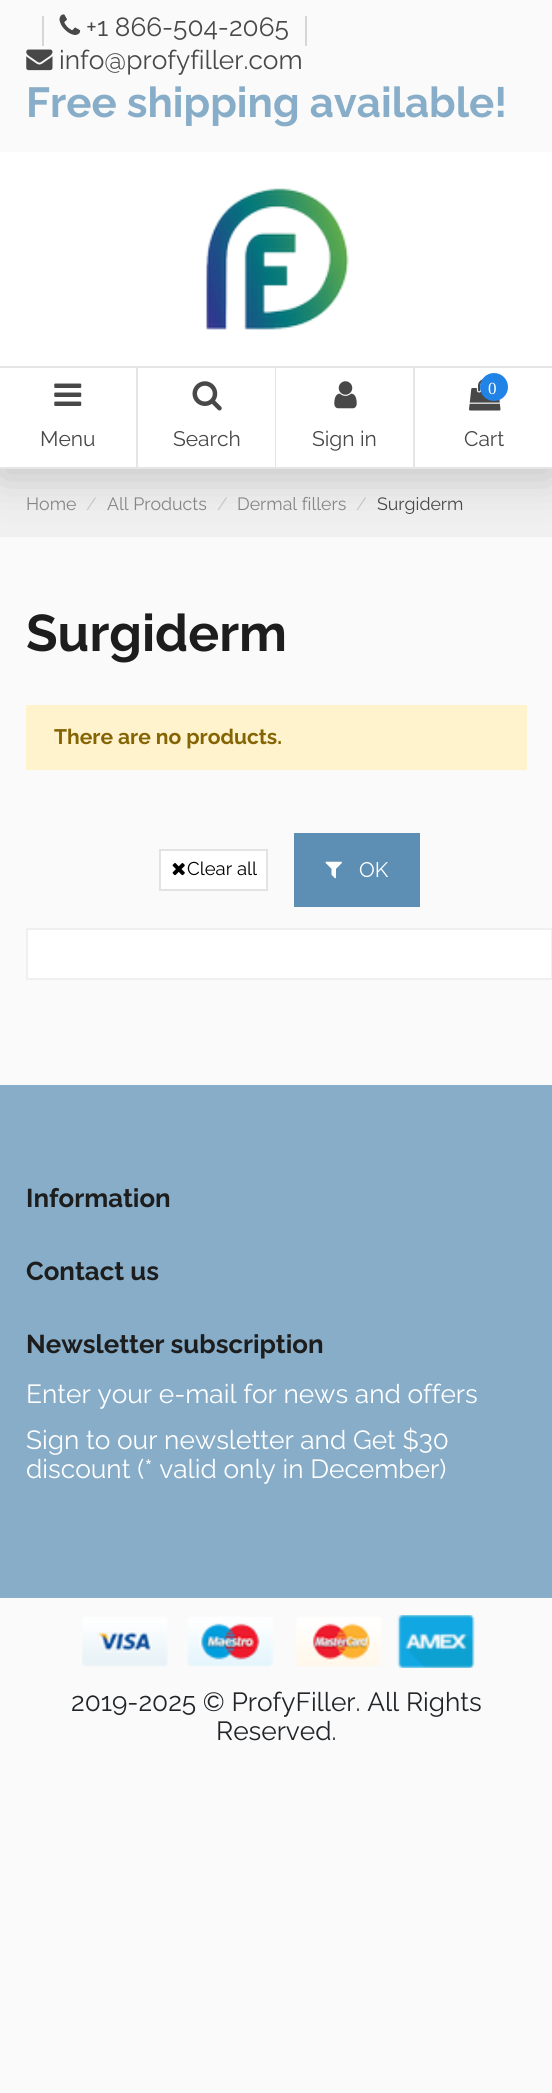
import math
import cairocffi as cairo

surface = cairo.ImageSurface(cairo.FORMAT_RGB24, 552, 2093)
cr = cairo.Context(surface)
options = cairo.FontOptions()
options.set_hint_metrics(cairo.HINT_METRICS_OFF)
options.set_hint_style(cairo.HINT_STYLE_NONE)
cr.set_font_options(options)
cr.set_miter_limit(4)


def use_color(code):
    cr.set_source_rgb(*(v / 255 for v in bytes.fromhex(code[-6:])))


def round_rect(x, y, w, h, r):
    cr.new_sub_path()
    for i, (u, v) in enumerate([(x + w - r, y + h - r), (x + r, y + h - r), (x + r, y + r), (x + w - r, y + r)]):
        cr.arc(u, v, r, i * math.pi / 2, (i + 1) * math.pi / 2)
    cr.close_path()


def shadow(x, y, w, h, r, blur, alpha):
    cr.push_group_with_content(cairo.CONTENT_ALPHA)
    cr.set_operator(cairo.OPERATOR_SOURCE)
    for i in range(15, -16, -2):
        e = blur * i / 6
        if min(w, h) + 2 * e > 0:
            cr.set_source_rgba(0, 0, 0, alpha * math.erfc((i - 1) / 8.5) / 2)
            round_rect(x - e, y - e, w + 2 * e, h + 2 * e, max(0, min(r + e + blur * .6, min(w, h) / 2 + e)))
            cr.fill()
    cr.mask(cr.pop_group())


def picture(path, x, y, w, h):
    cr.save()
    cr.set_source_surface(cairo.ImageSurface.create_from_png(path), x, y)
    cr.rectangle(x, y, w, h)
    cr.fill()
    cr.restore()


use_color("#fafafa")
cr.paint()
use_color("#f0f0f0")
cr.rectangle(0, 469, 552, 68)
cr.fill()
use_color("#000000")
shadow(0, 9, 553, 469, 0, 22, 0.18)
use_color("#ffffff")
cr.rectangle(0, 152, 552, 317)
cr.fill()
use_color("#fafafa")
cr.rectangle(0, 0, 552, 152)
cr.fill()
use_color("#d6d6d6")
cr.rectangle(42, 16, 2, 30)
cr.fill()
picture("img1.png", 59, 14, 22, 21)
cr.select_font_face("Raleway")
cr.set_font_size(26.25)
use_color("#484848")
cr.move_to(86, 36)
cr.show_text("+1 866-504-2065")
use_color("#d6d6d6")
cr.rectangle(305, 16, 2, 30)
cr.fill()
picture("img2.png", 26, 49, 27, 22)
use_color("#484848")
cr.move_to(59, 69)
cr.show_text("info@profyfiller.com")
cr.select_font_face("Raleway", cairo.FONT_SLANT_NORMAL, cairo.FONT_WEIGHT_BOLD)
cr.set_font_size(42)
use_color("#88adc8")
cr.move_to(26, 117)
cr.show_text("Free shipping available!")
picture("img3.png", 206, 188, 143, 142)
use_color("#e5e5e5")
cr.new_path()
cr.move_to(0, 366)
cr.line_to(138, 366)
cr.line_to(136, 368)
cr.line_to(0, 368)
cr.close_path()
cr.fill()
cr.set_source_rgba(0.082, 0.082, 0.082, 0.11)
cr.new_path()
cr.move_to(138, 366)
cr.line_to(138, 469)
cr.line_to(136, 467)
cr.line_to(136, 368)
cr.close_path()
cr.fill()
cr.new_path()
cr.move_to(138, 469)
cr.line_to(0, 469)
cr.line_to(0, 467)
cr.line_to(136, 467)
cr.close_path()
cr.fill()
picture("img4.png", 54, 383, 28, 23)
cr.select_font_face("Raleway")
cr.set_font_size(21)
use_color("#484848")
cr.move_to(40, 446)
cr.show_text("Menu")
use_color("#e5e5e5")
cr.new_path()
cr.move_to(138, 366)
cr.line_to(276, 366)
cr.line_to(275, 368)
cr.line_to(138, 368)
cr.close_path()
cr.fill()
cr.set_source_rgba(0.082, 0.082, 0.082, 0.11)
cr.new_path()
cr.move_to(276, 366)
cr.line_to(276, 469)
cr.line_to(275, 467)
cr.line_to(275, 368)
cr.close_path()
cr.fill()
cr.new_path()
cr.move_to(276, 469)
cr.line_to(138, 469)
cr.line_to(138, 467)
cr.line_to(275, 467)
cr.close_path()
cr.fill()
picture("img5.png", 192, 381, 30, 30)
use_color("#484848")
cr.move_to(173, 446)
cr.show_text("Search")
use_color("#e5e5e5")
cr.new_path()
cr.move_to(276, 366)
cr.line_to(415, 366)
cr.line_to(413, 368)
cr.line_to(276, 368)
cr.close_path()
cr.fill()
cr.set_source_rgba(0.082, 0.082, 0.082, 0.11)
cr.new_path()
cr.move_to(415, 366)
cr.line_to(415, 469)
cr.line_to(413, 467)
cr.line_to(413, 368)
cr.close_path()
cr.fill()
cr.new_path()
cr.move_to(415, 469)
cr.line_to(276, 469)
cr.line_to(276, 467)
cr.line_to(413, 467)
cr.close_path()
cr.fill()
picture("img6.png", 334, 381, 23, 28)
use_color("#484848")
cr.move_to(312, 446)
cr.show_text("Sign in")
use_color("#e5e5e5")
cr.rectangle(415, 366, 137, 2)
cr.fill()
cr.rectangle(415, 467, 137, 2)
cr.fill()
picture("img7.png", 469, 379, 32, 32)
use_color("#2183e6")
cr.arc(494, 387, 14, 0, 2 * math.pi)
cr.fill()
cr.select_font_face("Liberation Serif")
cr.set_font_size(17)
use_color("#ffffff")
cr.move_to(488, 394)
cr.show_text("0")
cr.select_font_face("Raleway")
cr.set_font_size(21)
use_color("#484848")
cr.move_to(464, 446)
cr.show_text("Cart")
cr.set_font_size(17.75)
use_color("#858585")
cr.move_to(26, 510)
cr.show_text("Home")
use_color("#c5c5c5")
cr.move_to(86, 510)
cr.show_text("/")
use_color("#858585")
cr.move_to(107, 510)
cr.show_text("All Products")
use_color("#c5c5c5")
cr.move_to(217, 510)
cr.show_text("/")
use_color("#858585")
cr.move_to(237, 510)
cr.show_text("Dermal fillers")
use_color("#c5c5c5")
cr.move_to(356, 510)
cr.show_text("/")
use_color("#484848")
cr.move_to(377, 510)
cr.show_text("Surgiderm")
cr.select_font_face("Raleway", cairo.FONT_SLANT_NORMAL, cairo.FONT_WEIGHT_BOLD)
cr.set_font_size(51.5)
use_color("#1d1d1d")
cr.move_to(26, 651)
cr.show_text("Surgiderm")
use_color("#fff3cd")
cr.rectangle(26, 705, 501, 65)
cr.fill()
cr.set_font_size(21)
use_color("#856404")
cr.move_to(54, 744)
cr.show_text("There are no products.")
use_color("#ffffff")
cr.rectangle(160, 850, 107, 40)
cr.fill_preserve()
use_color("#e3e3e3")
cr.stroke()
picture("img8.png", 172, 863, 13, 13)
cr.select_font_face("Raleway")
cr.set_font_size(18.5)
use_color("#000000")
cr.move_to(187, 875)
cr.show_text("Clear all")
use_color("#5d8eb3")
cr.rectangle(294, 833, 126, 74)
cr.fill()
picture("img9.png", 325, 861, 17, 18)
cr.set_font_size(21)
use_color("#ffffff")
cr.move_to(359, 877)
cr.show_text("OK")
cr.rectangle(27, 929, 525, 50)
cr.fill_preserve()
use_color("#f0f0f0")
cr.stroke()
use_color("#87adc9")
cr.rectangle(0, 1085, 552, 513)
cr.fill()
cr.select_font_face("Raleway", cairo.FONT_SLANT_NORMAL, cairo.FONT_WEIGHT_BOLD)
cr.set_font_size(25.8)
use_color("#1d1d1d")
cr.move_to(26, 1207)
cr.show_text("Information")
cr.move_to(26, 1280)
cr.show_text("Contact us")
cr.move_to(26, 1353)
cr.show_text("Newsletter subscription")
cr.select_font_face("Raleway")
cr.set_font_size(26.25)
use_color("#ffffff")
cr.move_to(26, 1403)
cr.show_text("Enter your e-mail for news and offers")
cr.move_to(26, 1449)
cr.show_text("Sign to our newsletter and Get $30")
cr.move_to(26, 1478)
cr.show_text("discount (* valid only in December)")
picture("img10.png", 82, 1615, 393, 53)
use_color("#212529")
cr.move_to(71, 1711)
cr.show_text("2019-2025 © ProfyFiller. All Rights")
cr.move_to(216, 1740)
cr.show_text("Reserved.")
surface.write_to_png("result.png")
